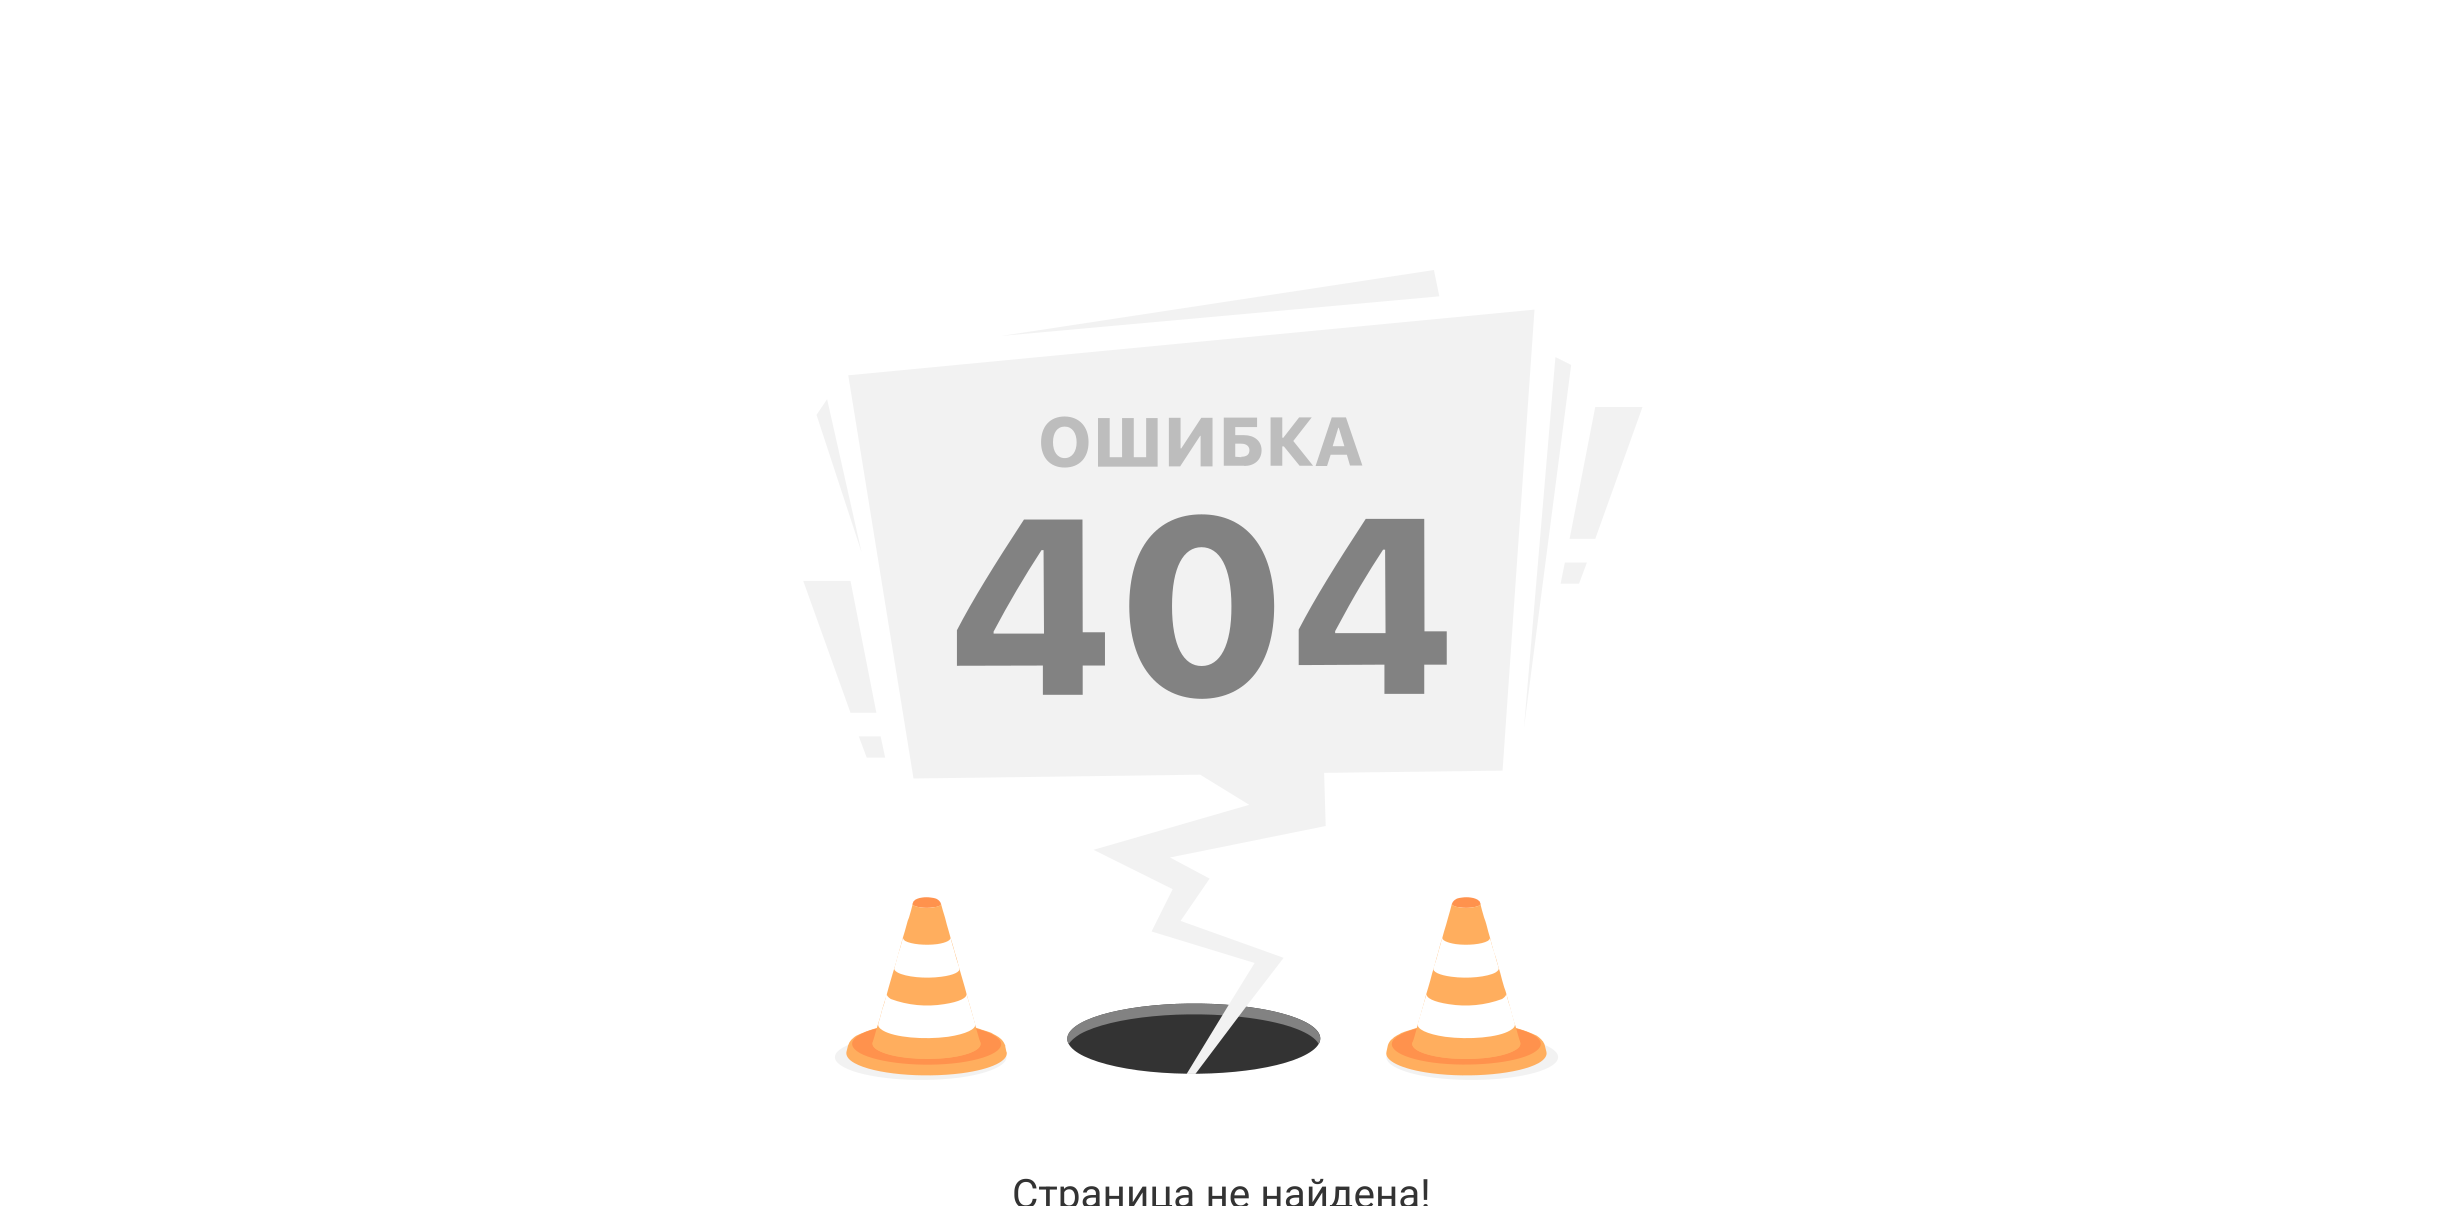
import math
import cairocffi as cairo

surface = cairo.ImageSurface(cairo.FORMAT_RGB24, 2442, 1206)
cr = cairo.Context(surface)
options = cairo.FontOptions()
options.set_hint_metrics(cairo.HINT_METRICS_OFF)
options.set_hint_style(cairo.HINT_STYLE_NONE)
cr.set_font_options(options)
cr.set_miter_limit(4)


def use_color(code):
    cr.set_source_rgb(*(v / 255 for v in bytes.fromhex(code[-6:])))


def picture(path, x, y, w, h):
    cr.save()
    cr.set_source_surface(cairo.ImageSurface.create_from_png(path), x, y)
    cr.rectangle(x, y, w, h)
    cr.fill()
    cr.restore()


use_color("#ffffff")
cr.paint()
picture("img1.png", 803, 270, 840, 810)
cr.select_font_face("Roboto")
cr.set_font_size(40.5)
use_color("#333333")
cr.move_to(1012, 1208)
cr.show_text("Страница не найдена!")
surface.write_to_png("result.png")
